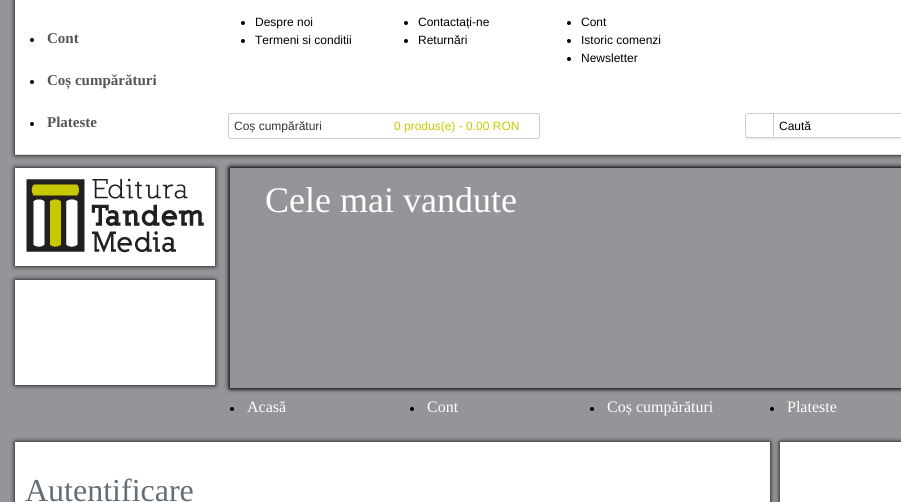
import math
import cairocffi as cairo

surface = cairo.ImageSurface(cairo.FORMAT_RGB24, 901, 502)
cr = cairo.Context(surface)
options = cairo.FontOptions()
options.set_hint_metrics(cairo.HINT_METRICS_OFF)
options.set_hint_style(cairo.HINT_STYLE_NONE)
cr.set_font_options(options)
cr.set_miter_limit(4)


def use_color(code):
    cr.set_source_rgb(*(v / 255 for v in bytes.fromhex(code[-6:])))


def round_rect(x, y, w, h, r):
    cr.new_sub_path()
    for i, (u, v) in enumerate([(x + w - r, y + h - r), (x + r, y + h - r), (x + r, y + r), (x + w - r, y + r)]):
        cr.arc(u, v, r, i * math.pi / 2, (i + 1) * math.pi / 2)
    cr.close_path()


def shadow(x, y, w, h, r, blur, alpha):
    cr.push_group_with_content(cairo.CONTENT_ALPHA)
    cr.set_operator(cairo.OPERATOR_SOURCE)
    for i in range(15, -16, -2):
        e = blur * i / 6
        if min(w, h) + 2 * e > 0:
            cr.set_source_rgba(0, 0, 0, alpha * math.erfc((i - 1) / 8.5) / 2)
            round_rect(x - e, y - e, w + 2 * e, h + 2 * e, max(0, min(r + e + blur * .6, min(w, h) / 2 + e)))
            cr.fill()
    cr.mask(cr.pop_group())


def picture(path, x, y, w, h):
    cr.save()
    cr.set_source_surface(cairo.ImageSurface.create_from_png(path), x, y)
    cr.rectangle(x, y, w, h)
    cr.fill()
    cr.restore()


use_color("#939598")
cr.paint()
use_color("#000000")
shadow(15, -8, 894, 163, 0, 2.5, 1)
use_color("#ffffff")
cr.rectangle(15, 0, 886, 154)
cr.fill()
use_color("#000000")
cr.arc(32, 40, 2, 0, 2 * math.pi)
cr.fill()
cr.select_font_face("Liberation Serif", cairo.FONT_SLANT_NORMAL, cairo.FONT_WEIGHT_BOLD)
cr.set_font_size(15)
use_color("#555555")
cr.move_to(47, 43)
cr.show_text("Cont")
use_color("#000000")
cr.new_path()
cr.arc(32, 82, 2, 0, 2 * math.pi)
cr.fill()
use_color("#555555")
cr.move_to(47, 85)
cr.show_text("Coș cumpărături")
use_color("#000000")
cr.new_path()
cr.arc(32, 124, 2, 0, 2 * math.pi)
cr.fill()
use_color("#555555")
cr.move_to(47, 127)
cr.show_text("Plateste")
use_color("#dbdee1")
cr.rectangle(15, 154, 886, 1)
cr.fill()
use_color("#000000")
cr.arc(243, 23, 2, 0, 2 * math.pi)
cr.fill()
cr.select_font_face("Liberation Sans")
cr.set_font_size(12)
cr.move_to(255, 26)
cr.show_text("Despre noi")
cr.new_path()
cr.arc(243, 41, 2, 0, 2 * math.pi)
cr.fill()
cr.move_to(255, 44)
cr.show_text("Termeni si conditii")
cr.new_path()
cr.arc(406, 23, 2, 0, 2 * math.pi)
cr.fill()
cr.move_to(418, 26)
cr.show_text("Contactați-ne")
cr.new_path()
cr.arc(406, 41, 2, 0, 2 * math.pi)
cr.fill()
cr.move_to(418, 44)
cr.show_text("Returnări")
cr.new_path()
cr.arc(569, 23, 2, 0, 2 * math.pi)
cr.fill()
cr.move_to(581, 26)
cr.show_text("Cont")
cr.new_path()
cr.arc(569, 41, 2, 0, 2 * math.pi)
cr.fill()
cr.move_to(581, 44)
cr.show_text("Istoric comenzi")
cr.new_path()
cr.arc(569, 59, 2, 0, 2 * math.pi)
cr.fill()
cr.move_to(581, 62)
cr.show_text("Newsletter")
round_rect(228.5, 113.5, 311, 25, 2.5)
use_color("#cccccc")
cr.set_line_width(1)
cr.stroke()
use_color("#333333")
cr.move_to(234, 130)
cr.show_text("Coș cumpărături")
use_color("#c8c800")
cr.move_to(394, 130)
cr.show_text("0 produs(e) - 0.00 RON")
use_color("#f0f0f0")
cr.new_path()
cr.move_to(745, 135)
cr.curve_to(745, 137, 745, 140, 748, 140)
cr.line_to(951, 140)
cr.curve_to(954, 140, 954, 137, 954, 135)
cr.curve_to(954, 137, 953, 138, 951, 138)
cr.line_to(748, 138)
cr.line_to(746, 137)
cr.close_path()
cr.fill()
use_color("#ffffff")
round_rect(745.5, 113.5, 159, 24, 2.5)
cr.fill_preserve()
use_color("#cccccc")
cr.stroke()
cr.rectangle(773, 113, 1, 24)
cr.fill()
use_color("#000000")
cr.move_to(779, 130)
cr.show_text("Caută")
use_color("#000000")
shadow(15, 168, 200, 98, 0, 2.5, 1)
use_color("#ffffff")
cr.rectangle(15, 168, 200, 98)
cr.fill()
picture("img1.png", 26, 178, 178, 75)
use_color("#000000")
shadow(15, 280, 200, 105, 0, 2.5, 1)
use_color("#ffffff")
cr.rectangle(15, 280, 200, 105)
cr.fill()
use_color("#000000")
shadow(15, 442, 755, 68, 0, 2.5, 1)
use_color("#ffffff")
cr.rectangle(15, 442, 755, 60)
cr.fill()
cr.save()
cr.set_fill_rule(cairo.FILL_RULE_EVEN_ODD)
cr.new_path()
cr.move_to(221, 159)
cr.line_to(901, 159)
cr.line_to(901, 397)
cr.line_to(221, 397)
cr.close_path()
cr.move_to(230, 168)
cr.line_to(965, 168)
cr.line_to(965, 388)
cr.line_to(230, 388)
cr.close_path()
cr.clip()
use_color("#000000")
shadow(230, 168, 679, 220, 0, 2.5, 1)
shadow(230, 168, 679, 220, 0, 2.5, 1)
cr.restore()
cr.select_font_face("Liberation Serif")
cr.set_font_size(36)
cr.move_to(265, 212)
cr.show_text("Cele mai vandute")
cr.set_font_size(32)
use_color("#636e75")
cr.move_to(25, 501)
cr.show_text("Autentificare")
use_color("#000000")
shadow(780, 442, 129, 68, 0, 2.5, 1)
use_color("#ffffff")
cr.rectangle(780, 442, 121, 60)
cr.fill()
use_color("#000000")
cr.arc(232, 409, 2, 0, 2 * math.pi)
cr.fill()
cr.set_font_size(16)
use_color("#ffffff")
cr.move_to(247, 412)
cr.show_text("Acasă")
use_color("#000000")
cr.new_path()
cr.arc(412, 409, 2, 0, 2 * math.pi)
cr.fill()
use_color("#ffffff")
cr.move_to(427, 412)
cr.show_text("Cont")
use_color("#000000")
cr.new_path()
cr.arc(592, 409, 2, 0, 2 * math.pi)
cr.fill()
use_color("#ffffff")
cr.move_to(607, 412)
cr.show_text("Coș cumpărături")
use_color("#000000")
cr.new_path()
cr.arc(772, 409, 2, 0, 2 * math.pi)
cr.fill()
use_color("#ffffff")
cr.move_to(787, 412)
cr.show_text("Plateste")
surface.write_to_png("result.png")
